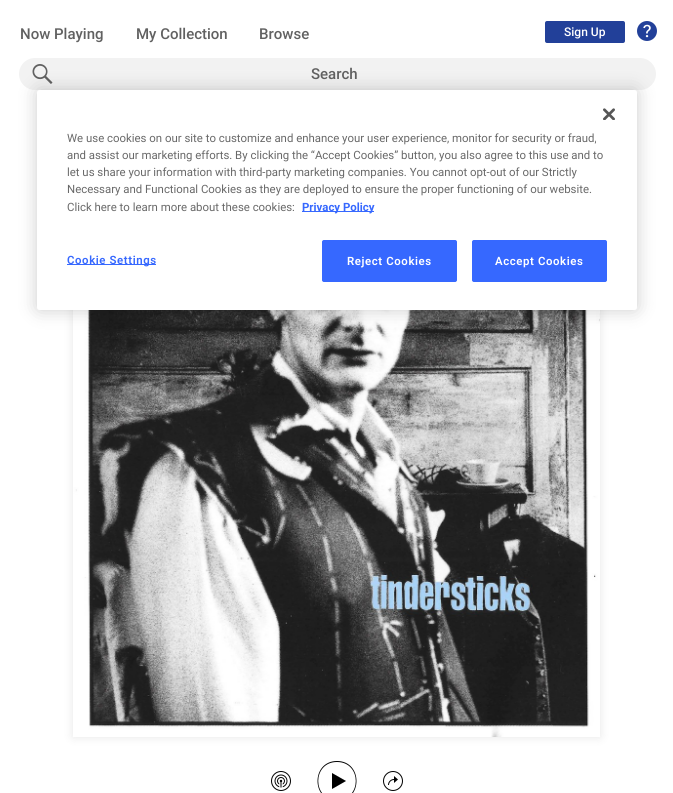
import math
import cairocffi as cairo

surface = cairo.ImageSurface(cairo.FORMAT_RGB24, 673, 793)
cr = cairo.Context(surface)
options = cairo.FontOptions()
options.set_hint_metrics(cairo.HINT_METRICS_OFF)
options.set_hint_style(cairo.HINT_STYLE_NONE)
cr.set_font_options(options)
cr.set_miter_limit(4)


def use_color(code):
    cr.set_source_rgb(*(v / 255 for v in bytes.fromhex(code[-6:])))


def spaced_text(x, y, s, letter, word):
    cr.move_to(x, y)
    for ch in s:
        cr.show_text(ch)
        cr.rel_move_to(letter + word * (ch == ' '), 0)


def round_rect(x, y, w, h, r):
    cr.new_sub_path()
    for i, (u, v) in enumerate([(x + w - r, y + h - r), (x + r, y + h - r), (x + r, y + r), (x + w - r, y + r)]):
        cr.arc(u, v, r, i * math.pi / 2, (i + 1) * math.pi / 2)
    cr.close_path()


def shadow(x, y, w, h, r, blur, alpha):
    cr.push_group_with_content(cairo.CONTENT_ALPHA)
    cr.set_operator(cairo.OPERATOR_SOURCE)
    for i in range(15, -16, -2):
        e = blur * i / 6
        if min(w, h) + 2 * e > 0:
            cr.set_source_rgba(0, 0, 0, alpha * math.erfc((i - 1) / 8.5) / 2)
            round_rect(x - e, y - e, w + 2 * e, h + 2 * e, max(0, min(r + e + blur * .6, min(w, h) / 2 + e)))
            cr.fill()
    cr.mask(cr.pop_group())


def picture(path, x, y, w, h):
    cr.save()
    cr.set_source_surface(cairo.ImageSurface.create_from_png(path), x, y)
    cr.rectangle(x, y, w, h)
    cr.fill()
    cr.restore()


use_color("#ffffff")
cr.paint()
cr.select_font_face("Roboto Medium")
cr.set_font_size(15)
use_color("#616161")
cr.move_to(20, 39)
cr.show_text("Now Playing")
cr.move_to(136, 39)
cr.show_text("My Collection")
cr.move_to(259, 39)
cr.show_text("Browse")
use_color("#224099")
round_rect(545, 21, 80, 22, 2)
cr.fill()
cr.set_font_size(12)
use_color("#ffffff")
cr.move_to(564, 36)
cr.show_text("Sign Up")
picture("img1.png", 637, 21, 20, 20)
use_color("#f2f2f2")
round_rect(19, 58, 637, 32, 16)
cr.fill()
picture("img2.png", 32, 64, 21, 20)
cr.set_font_size(15)
use_color("#616161")
cr.move_to(311, 79)
cr.show_text("Search")
use_color("#000000")
shadow(73, 210, 527, 527, 0, 5, 0.1)
picture("img3.png", 73, 310, 527, 427)
picture("img4.png", 271, 771, 20, 20)
use_color("#000000")
cr.set_fill_rule(cairo.FILL_RULE_EVEN_ODD)
cr.new_path()
cr.move_to(332, 789)
cr.line_to(332, 773)
cr.line_to(346, 781)
cr.close_path()
cr.fill()
cr.set_fill_rule(cairo.FILL_RULE_WINDING)
cr.new_path()
cr.move_to(337, 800)
cr.curve_to(362, 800, 362, 762, 337, 762)
cr.curve_to(312, 762, 312, 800, 337, 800)
cr.close_path()
cr.move_to(337, 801)
cr.curve_to(311, 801, 311, 761, 337, 761)
cr.curve_to(363, 761, 363, 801, 337, 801)
cr.close_path()
cr.fill()
picture("img5.png", 383, 771, 20, 20)
use_color("#000000")
shadow(37, 90, 600, 220, 2.5, 9, 0.2)
use_color("#ffffff")
round_rect(37, 90, 600, 220, 2.5)
cr.fill()
picture("img6.png", 603, 108, 12, 12)
cr.select_font_face("Roboto")
cr.set_font_size(11.4)
use_color("#696969")
cr.move_to(67, 142)
cr.show_text("We use cookies on our site to customize and enhance your user experience, monitor for security or fraud,")
cr.move_to(67, 159)
cr.show_text("and assist our marketing efforts. By clicking the “Accept Cookies” button, you also agree to this use and to")
cr.move_to(67, 176)
cr.show_text("let us share your information with third-party marketing companies. You cannot opt-out of our Strictly")
cr.move_to(67, 193)
cr.show_text("Necessary and Functional Cookies as they are deployed to ensure the proper functioning of our website.")
cr.move_to(67, 211)
cr.show_text("Click here to learn more about these cookies:")
use_color("#3668ff")
cr.rectangle(302, 211, 72, 1)
cr.fill()
cr.select_font_face("Roboto", cairo.FONT_SLANT_NORMAL, cairo.FONT_WEIGHT_BOLD)
cr.move_to(302, 211)
cr.show_text("Privacy Policy")
cr.rectangle(67, 264, 89, 1)
cr.fill()
cr.select_font_face("Roboto SemiBold")
spaced_text(67, 264, "Cookie Settings", 0.6, 0)
round_rect(322.5, 240.5, 134, 41, 1.5)
cr.fill_preserve()
cr.set_line_width(1)
cr.stroke()
use_color("#ffffff")
spaced_text(347, 265, "Reject Cookies", 0.6, 0)
use_color("#3668ff")
round_rect(472.5, 240.5, 134, 41, 1.5)
cr.fill_preserve()
cr.stroke()
use_color("#ffffff")
spaced_text(495, 265, "Accept Cookies", 0.6, 0)
surface.write_to_png("result.png")
